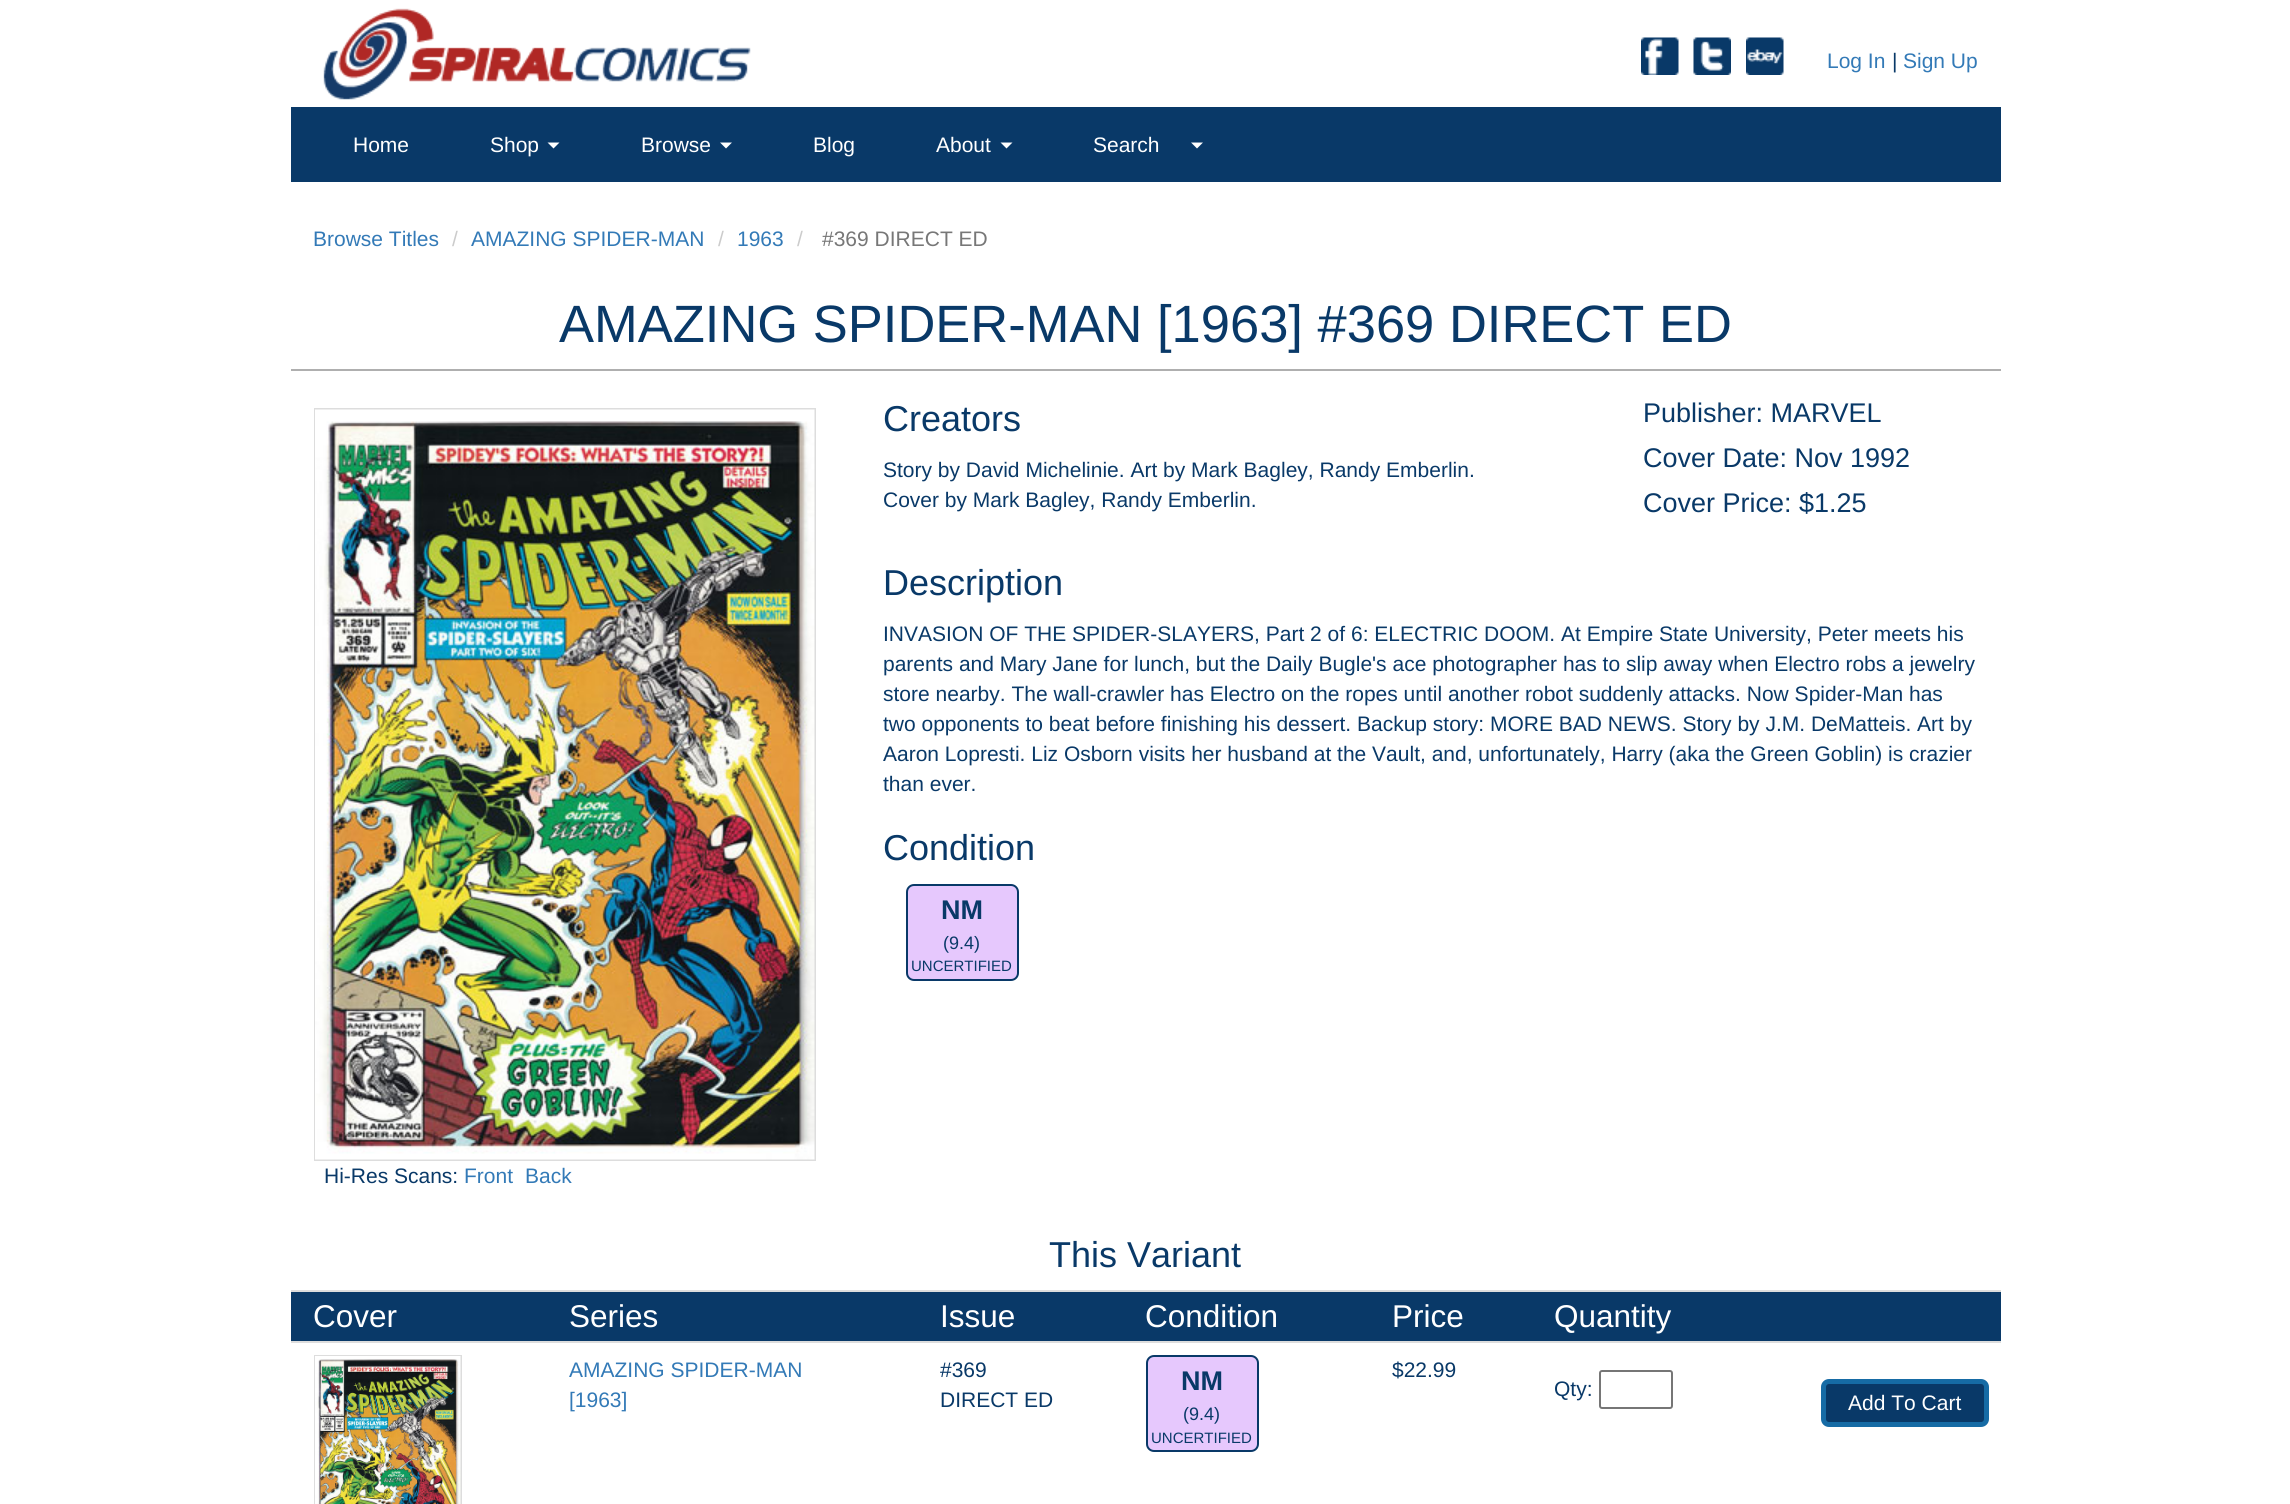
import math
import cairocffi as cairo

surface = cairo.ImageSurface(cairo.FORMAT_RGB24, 2290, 1504)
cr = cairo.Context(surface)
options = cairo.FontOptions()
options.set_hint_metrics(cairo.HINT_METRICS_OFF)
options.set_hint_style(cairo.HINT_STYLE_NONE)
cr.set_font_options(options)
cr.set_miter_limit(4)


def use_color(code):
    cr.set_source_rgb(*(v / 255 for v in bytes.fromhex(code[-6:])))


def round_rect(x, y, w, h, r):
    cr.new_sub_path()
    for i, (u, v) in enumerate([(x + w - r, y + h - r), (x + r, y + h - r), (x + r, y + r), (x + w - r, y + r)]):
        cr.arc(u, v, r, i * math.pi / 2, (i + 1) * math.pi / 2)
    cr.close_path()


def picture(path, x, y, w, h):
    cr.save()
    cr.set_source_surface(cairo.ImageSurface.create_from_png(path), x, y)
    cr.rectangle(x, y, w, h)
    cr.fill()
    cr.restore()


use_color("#ffffff")
cr.paint()
picture("img1.png", 323, 8, 428, 92)
picture("img2.png", 1641, 37, 38, 38)
picture("img3.png", 1693, 37, 38, 38)
picture("img4.png", 1746, 37, 38, 38)
cr.select_font_face("Liberation Sans")
cr.set_font_size(21)
use_color("#337ab7")
cr.move_to(1827, 68)
cr.show_text("Log In")
use_color("#093968")
cr.move_to(1892, 68)
cr.show_text("|")
use_color("#337ab7")
cr.move_to(1903, 68)
cr.show_text("Sign Up")
use_color("#093968")
cr.rectangle(291, 107, 1710, 75)
cr.fill()
use_color("#ffffff")
cr.move_to(353, 152)
cr.show_text("Home")
cr.move_to(490, 152)
cr.show_text("Shop")
cr.new_path()
cr.move_to(547.5, 142.5)
cr.line_to(559.5, 142.5)
cr.line_to(553.5, 148.5)
cr.close_path()
cr.fill()
cr.move_to(641, 152)
cr.show_text("Browse")
cr.new_path()
cr.move_to(720, 142.5)
cr.line_to(732, 142.5)
cr.line_to(726, 148.5)
cr.close_path()
cr.fill()
cr.move_to(813, 152)
cr.show_text("Blog")
cr.move_to(936, 152)
cr.show_text("About")
cr.new_path()
cr.move_to(1000.5, 142.5)
cr.line_to(1012.5, 142.5)
cr.line_to(1006.5, 148.5)
cr.close_path()
cr.fill()
cr.move_to(1093, 152)
cr.show_text("Search")
cr.new_path()
cr.move_to(1191, 142.5)
cr.line_to(1203, 142.5)
cr.line_to(1197, 148.5)
cr.close_path()
cr.fill()
use_color("#337ab7")
cr.move_to(313, 246)
cr.show_text("Browse Titles")
use_color("#cccccc")
cr.move_to(452, 246)
cr.show_text("/")
use_color("#337ab7")
cr.move_to(471, 246)
cr.show_text("AMAZING SPIDER-MAN")
use_color("#cccccc")
cr.move_to(718, 246)
cr.show_text("/")
use_color("#337ab7")
cr.move_to(737, 246)
cr.show_text("1963")
use_color("#cccccc")
cr.move_to(797, 246)
cr.show_text("/")
use_color("#777777")
cr.move_to(822, 246)
cr.show_text("#369 DIRECT ED")
cr.set_font_size(52.5)
use_color("#093968")
cr.move_to(559, 342)
cr.show_text("AMAZING SPIDER-MAN [1963] #369 DIRECT ED")
use_color("#afafaf")
cr.rectangle(291, 369, 1710, 2)
cr.fill()
cr.set_font_size(36)
use_color("#093968")
cr.move_to(883, 431)
cr.show_text("Creators")
cr.set_font_size(21)
cr.move_to(883, 477)
cr.show_text("Story by David Michelinie. Art by Mark Bagley, Randy Emberlin.")
cr.move_to(883, 507)
cr.show_text("Cover by Mark Bagley, Randy Emberlin.")
cr.set_font_size(27)
cr.move_to(1643, 422)
cr.show_text("Publisher: MARVEL")
cr.move_to(1643, 467)
cr.show_text("Cover Date: Nov 1992")
cr.move_to(1643, 512)
cr.show_text("Cover Price: $1.25")
cr.set_font_size(36)
cr.move_to(883, 595)
cr.show_text("Description")
cr.set_font_size(21)
cr.move_to(883, 641)
cr.show_text("INVASION OF THE SPIDER-SLAYERS, Part 2 of 6: ELECTRIC DOOM. At Empire State University, Peter meets his")
cr.move_to(883, 671)
cr.show_text("parents and Mary Jane for lunch, but the Daily Bugle's ace photographer has to slip away when Electro robs a jewelry")
cr.move_to(883, 701)
cr.show_text("store nearby. The wall-crawler has Electro on the ropes until another robot suddenly attacks. Now Spider-Man has")
cr.move_to(883, 731)
cr.show_text("two opponents to beat before finishing his dessert. Backup story: MORE BAD NEWS. Story by J.M. DeMatteis. Art by")
cr.move_to(883, 761)
cr.show_text("Aaron Lopresti. Liz Osborn visits her husband at the Vault, and, unfortunately, Harry (aka the Green Goblin) is crazier")
cr.move_to(883, 791)
cr.show_text("than ever.")
cr.set_font_size(36)
cr.move_to(883, 860)
cr.show_text("Condition")
use_color("#e6c8fd")
round_rect(907, 885, 111, 95, 7)
cr.fill_preserve()
use_color("#093968")
cr.stroke()
cr.select_font_face("Liberation Sans", cairo.FONT_SLANT_NORMAL, cairo.FONT_WEIGHT_BOLD)
cr.set_font_size(27)
cr.move_to(941, 919)
cr.show_text("NM")
cr.select_font_face("Liberation Sans")
cr.set_font_size(18)
cr.move_to(943, 949)
cr.show_text("(9.4)")
cr.set_font_size(15)
cr.move_to(911, 971)
cr.show_text("UNCERTIFIED")
cr.rectangle(315, 409, 500, 751)
use_color("#dddddd")
cr.stroke()
picture("img5.png", 315, 409, 500, 751)
cr.set_font_size(21)
use_color("#093968")
cr.move_to(324, 1183)
cr.show_text("Hi-Res Scans:")
use_color("#337ab7")
cr.move_to(464, 1183)
cr.show_text("Front")
cr.move_to(525, 1183)
cr.show_text("Back")
cr.set_font_size(36)
use_color("#093968")
cr.move_to(1049, 1267)
cr.show_text("This Variant")
cr.rectangle(291, 1292, 1710, 49)
cr.fill()
cr.set_font_size(31.5)
use_color("#ffffff")
cr.move_to(313, 1327)
cr.show_text("Cover")
cr.move_to(569, 1327)
cr.show_text("Series")
cr.move_to(940, 1327)
cr.show_text("Issue")
cr.move_to(1145, 1327)
cr.show_text("Condition")
cr.move_to(1392, 1327)
cr.show_text("Price")
use_color("#dddddd")
cr.rectangle(291, 1290, 1710, 2)
cr.fill()
use_color("#ffffff")
cr.move_to(1554, 1327)
cr.show_text("Quantity")
cr.rectangle(315, 1356, 146, 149)
use_color("#dddddd")
cr.stroke()
picture("img6.png", 315, 1356, 146, 148)
cr.set_font_size(21)
use_color("#337ab7")
cr.move_to(569, 1377)
cr.show_text("AMAZING SPIDER-MAN")
cr.move_to(569, 1407)
cr.show_text("[1963]")
use_color("#093968")
cr.move_to(940, 1377)
cr.show_text("#369")
cr.move_to(940, 1407)
cr.show_text("DIRECT ED")
use_color("#e6c8fd")
round_rect(1147, 1356, 111, 95, 7)
cr.fill_preserve()
use_color("#093968")
cr.stroke()
cr.select_font_face("Liberation Sans", cairo.FONT_SLANT_NORMAL, cairo.FONT_WEIGHT_BOLD)
cr.set_font_size(27)
cr.move_to(1181, 1390)
cr.show_text("NM")
cr.select_font_face("Liberation Sans")
cr.set_font_size(18)
cr.move_to(1183, 1420)
cr.show_text("(9.4)")
cr.set_font_size(15)
cr.move_to(1151, 1443)
cr.show_text("UNCERTIFIED")
cr.set_font_size(21)
cr.move_to(1392, 1377)
cr.show_text("$22.99")
use_color("#dddddd")
cr.rectangle(291, 1341, 1710, 2)
cr.fill()
use_color("#093968")
cr.move_to(1554, 1396)
cr.show_text("Qty:")
round_rect(1600, 1371, 72, 37, 2)
use_color("#767676")
cr.stroke()
use_color("#093968")
round_rect(1823.5, 1381.5, 163, 43, 5.5)
cr.fill_preserve()
use_color("#166ba5")
cr.set_line_width(5)
cr.stroke()
use_color("#ffffff")
cr.move_to(1848, 1410)
cr.show_text("Add To Cart")
surface.write_to_png("result.png")
